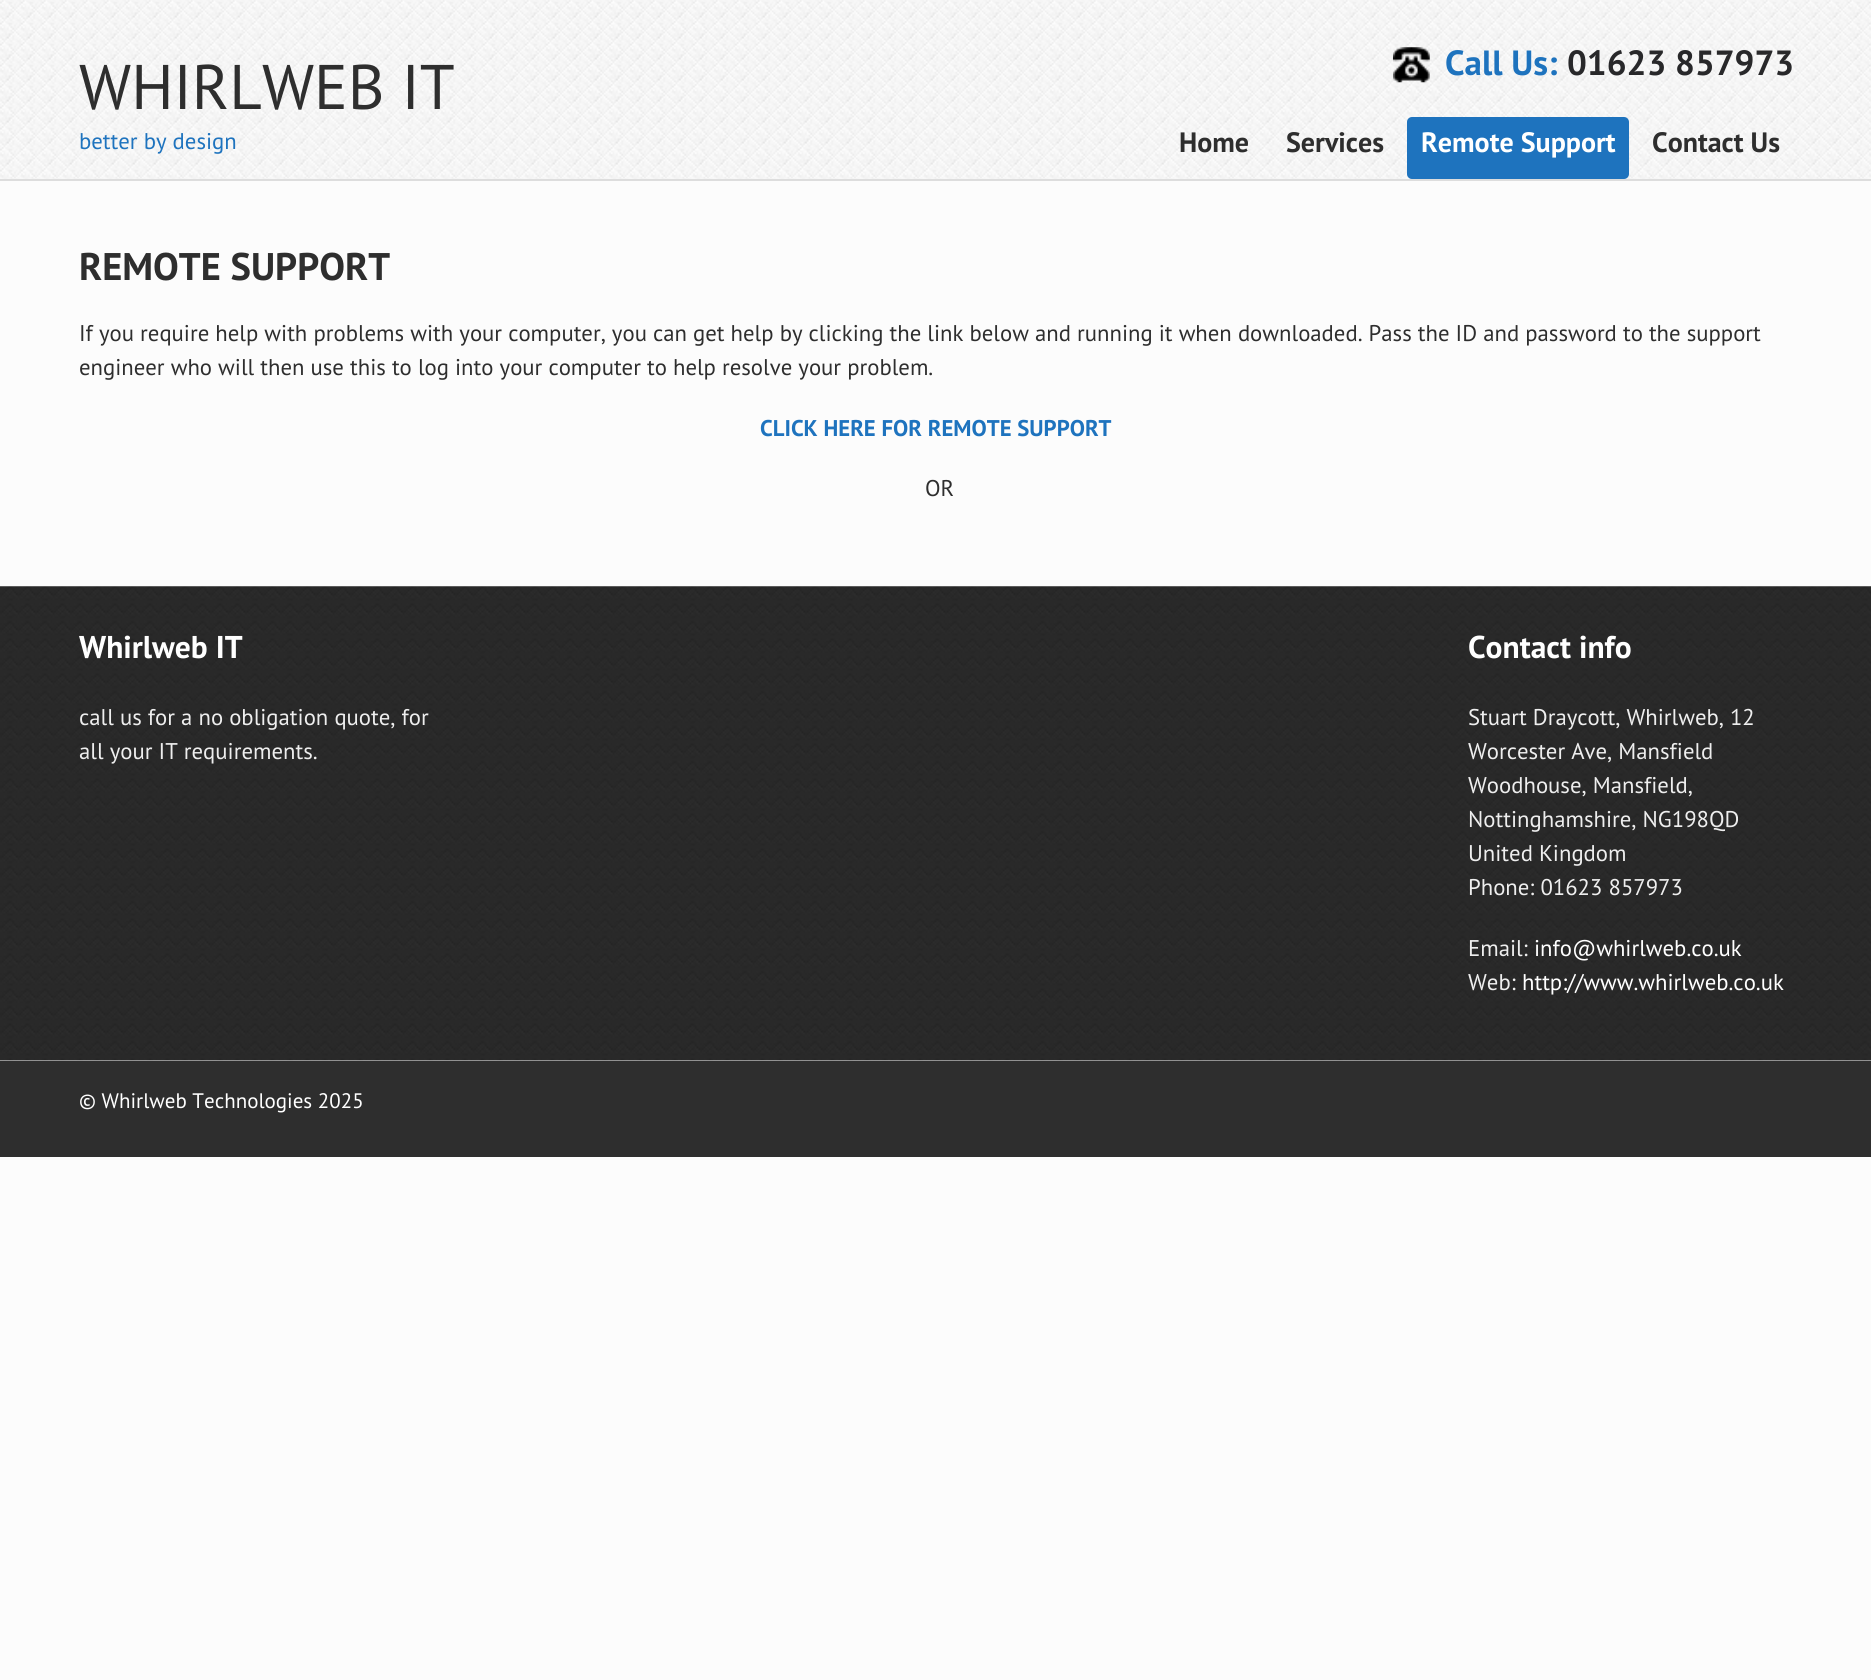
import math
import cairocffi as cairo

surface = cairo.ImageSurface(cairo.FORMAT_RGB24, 1871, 1680)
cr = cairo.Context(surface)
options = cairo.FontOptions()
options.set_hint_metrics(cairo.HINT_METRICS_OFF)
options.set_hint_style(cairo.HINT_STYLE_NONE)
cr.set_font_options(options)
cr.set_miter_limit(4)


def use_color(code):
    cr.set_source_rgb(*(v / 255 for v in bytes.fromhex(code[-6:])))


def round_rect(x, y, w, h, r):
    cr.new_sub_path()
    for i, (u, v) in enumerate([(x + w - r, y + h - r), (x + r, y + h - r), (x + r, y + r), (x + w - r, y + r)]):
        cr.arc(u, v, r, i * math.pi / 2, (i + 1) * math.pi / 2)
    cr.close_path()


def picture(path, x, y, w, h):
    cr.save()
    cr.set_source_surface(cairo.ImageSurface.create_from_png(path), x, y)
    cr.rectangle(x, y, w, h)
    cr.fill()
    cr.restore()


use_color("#fcfcfc")
cr.paint()
picture("img1.png", 0, 0, 1871, 179)
use_color("#dddddd")
cr.rectangle(0, 179, 1871, 2)
cr.fill()
cr.select_font_face("PT Sans")
cr.set_font_size(63)
use_color("#2e2e2e")
cr.move_to(79, 109)
cr.show_text("WHIRLWEB IT")
cr.set_font_size(22.75)
use_color("#1e73be")
cr.move_to(79, 149)
cr.show_text("better by design")
picture("img2.png", 1393, 47, 37, 36)
cr.select_font_face("PT Sans", cairo.FONT_SLANT_NORMAL, cairo.FONT_WEIGHT_BOLD)
cr.set_font_size(35)
cr.move_to(1445, 75)
cr.show_text("Call Us:")
use_color("#28282a")
cr.move_to(1567, 75)
cr.show_text("01623 857973")
cr.set_font_size(28)
use_color("#2e2e2e")
cr.move_to(1179, 152)
cr.show_text("Home")
cr.move_to(1286, 152)
cr.show_text("Services")
use_color("#1e73be")
round_rect(1407, 117, 222, 62, 5)
cr.fill()
use_color("#ffffff")
cr.move_to(1421, 152)
cr.show_text("Remote Support")
use_color("#2e2e2e")
cr.move_to(1652, 152)
cr.show_text("Contact Us")
cr.set_font_size(38.5)
cr.move_to(79, 280)
cr.show_text("REMOTE SUPPORT")
cr.select_font_face("PT Sans")
cr.set_font_size(22.75)
cr.move_to(79, 341)
cr.show_text("If you require help with problems with your computer, you can get help by clicking the link below and running it when downloaded. Pass the ID and password to the support")
cr.move_to(79, 375)
cr.show_text("engineer who will then use this to log into your computer to help resolve your problem.")
cr.select_font_face("PT Sans", cairo.FONT_SLANT_NORMAL, cairo.FONT_WEIGHT_BOLD)
use_color("#1e73be")
cr.move_to(760, 436)
cr.show_text("CLICK HERE FOR REMOTE SUPPORT")
cr.select_font_face("PT Sans")
use_color("#2e2e2e")
cr.move_to(925, 496)
cr.show_text("OR")
picture("img3.png", 0, 586, 1871, 475)
cr.select_font_face("PT Sans", cairo.FONT_SLANT_NORMAL, cairo.FONT_WEIGHT_BOLD)
cr.set_font_size(31.5)
use_color("#ffffff")
cr.move_to(79, 658)
cr.show_text("Whirlweb IT")
cr.select_font_face("PT Sans")
cr.set_font_size(22.75)
use_color("#eeeeee")
cr.move_to(79, 725)
cr.show_text("call us for a no obligation quote, for")
cr.move_to(79, 759)
cr.show_text("all your IT requirements.")
cr.select_font_face("PT Sans", cairo.FONT_SLANT_NORMAL, cairo.FONT_WEIGHT_BOLD)
cr.set_font_size(31.5)
use_color("#ffffff")
cr.move_to(1468, 658)
cr.show_text("Contact info")
cr.select_font_face("PT Sans")
cr.set_font_size(22.75)
use_color("#eeeeee")
cr.move_to(1468, 725)
cr.show_text("Stuart Draycott, Whirlweb, 12")
cr.move_to(1468, 759)
cr.show_text("Worcester Ave, Mansfield")
cr.move_to(1468, 793)
cr.show_text("Woodhouse, Mansfield,")
cr.move_to(1468, 827)
cr.show_text("Nottinghamshire, NG198QD")
cr.move_to(1468, 861)
cr.show_text("United Kingdom")
cr.move_to(1468, 895)
cr.show_text("Phone: 01623 857973")
cr.move_to(1468, 956)
cr.show_text("Email:")
use_color("#ffffff")
cr.move_to(1534, 956)
cr.show_text("info@whirlweb.co.uk")
use_color("#eeeeee")
cr.move_to(1468, 990)
cr.show_text("Web:")
use_color("#ffffff")
cr.move_to(1522, 990)
cr.show_text("http://www.whirlweb.co.uk")
use_color("#2e2e2e")
cr.rectangle(0, 1061, 1871, 96)
cr.fill()
cr.set_font_size(21)
use_color("#ffffff")
cr.move_to(79, 1108)
cr.show_text("© Whirlweb Technologies 2025")
surface.write_to_png("result.png")
